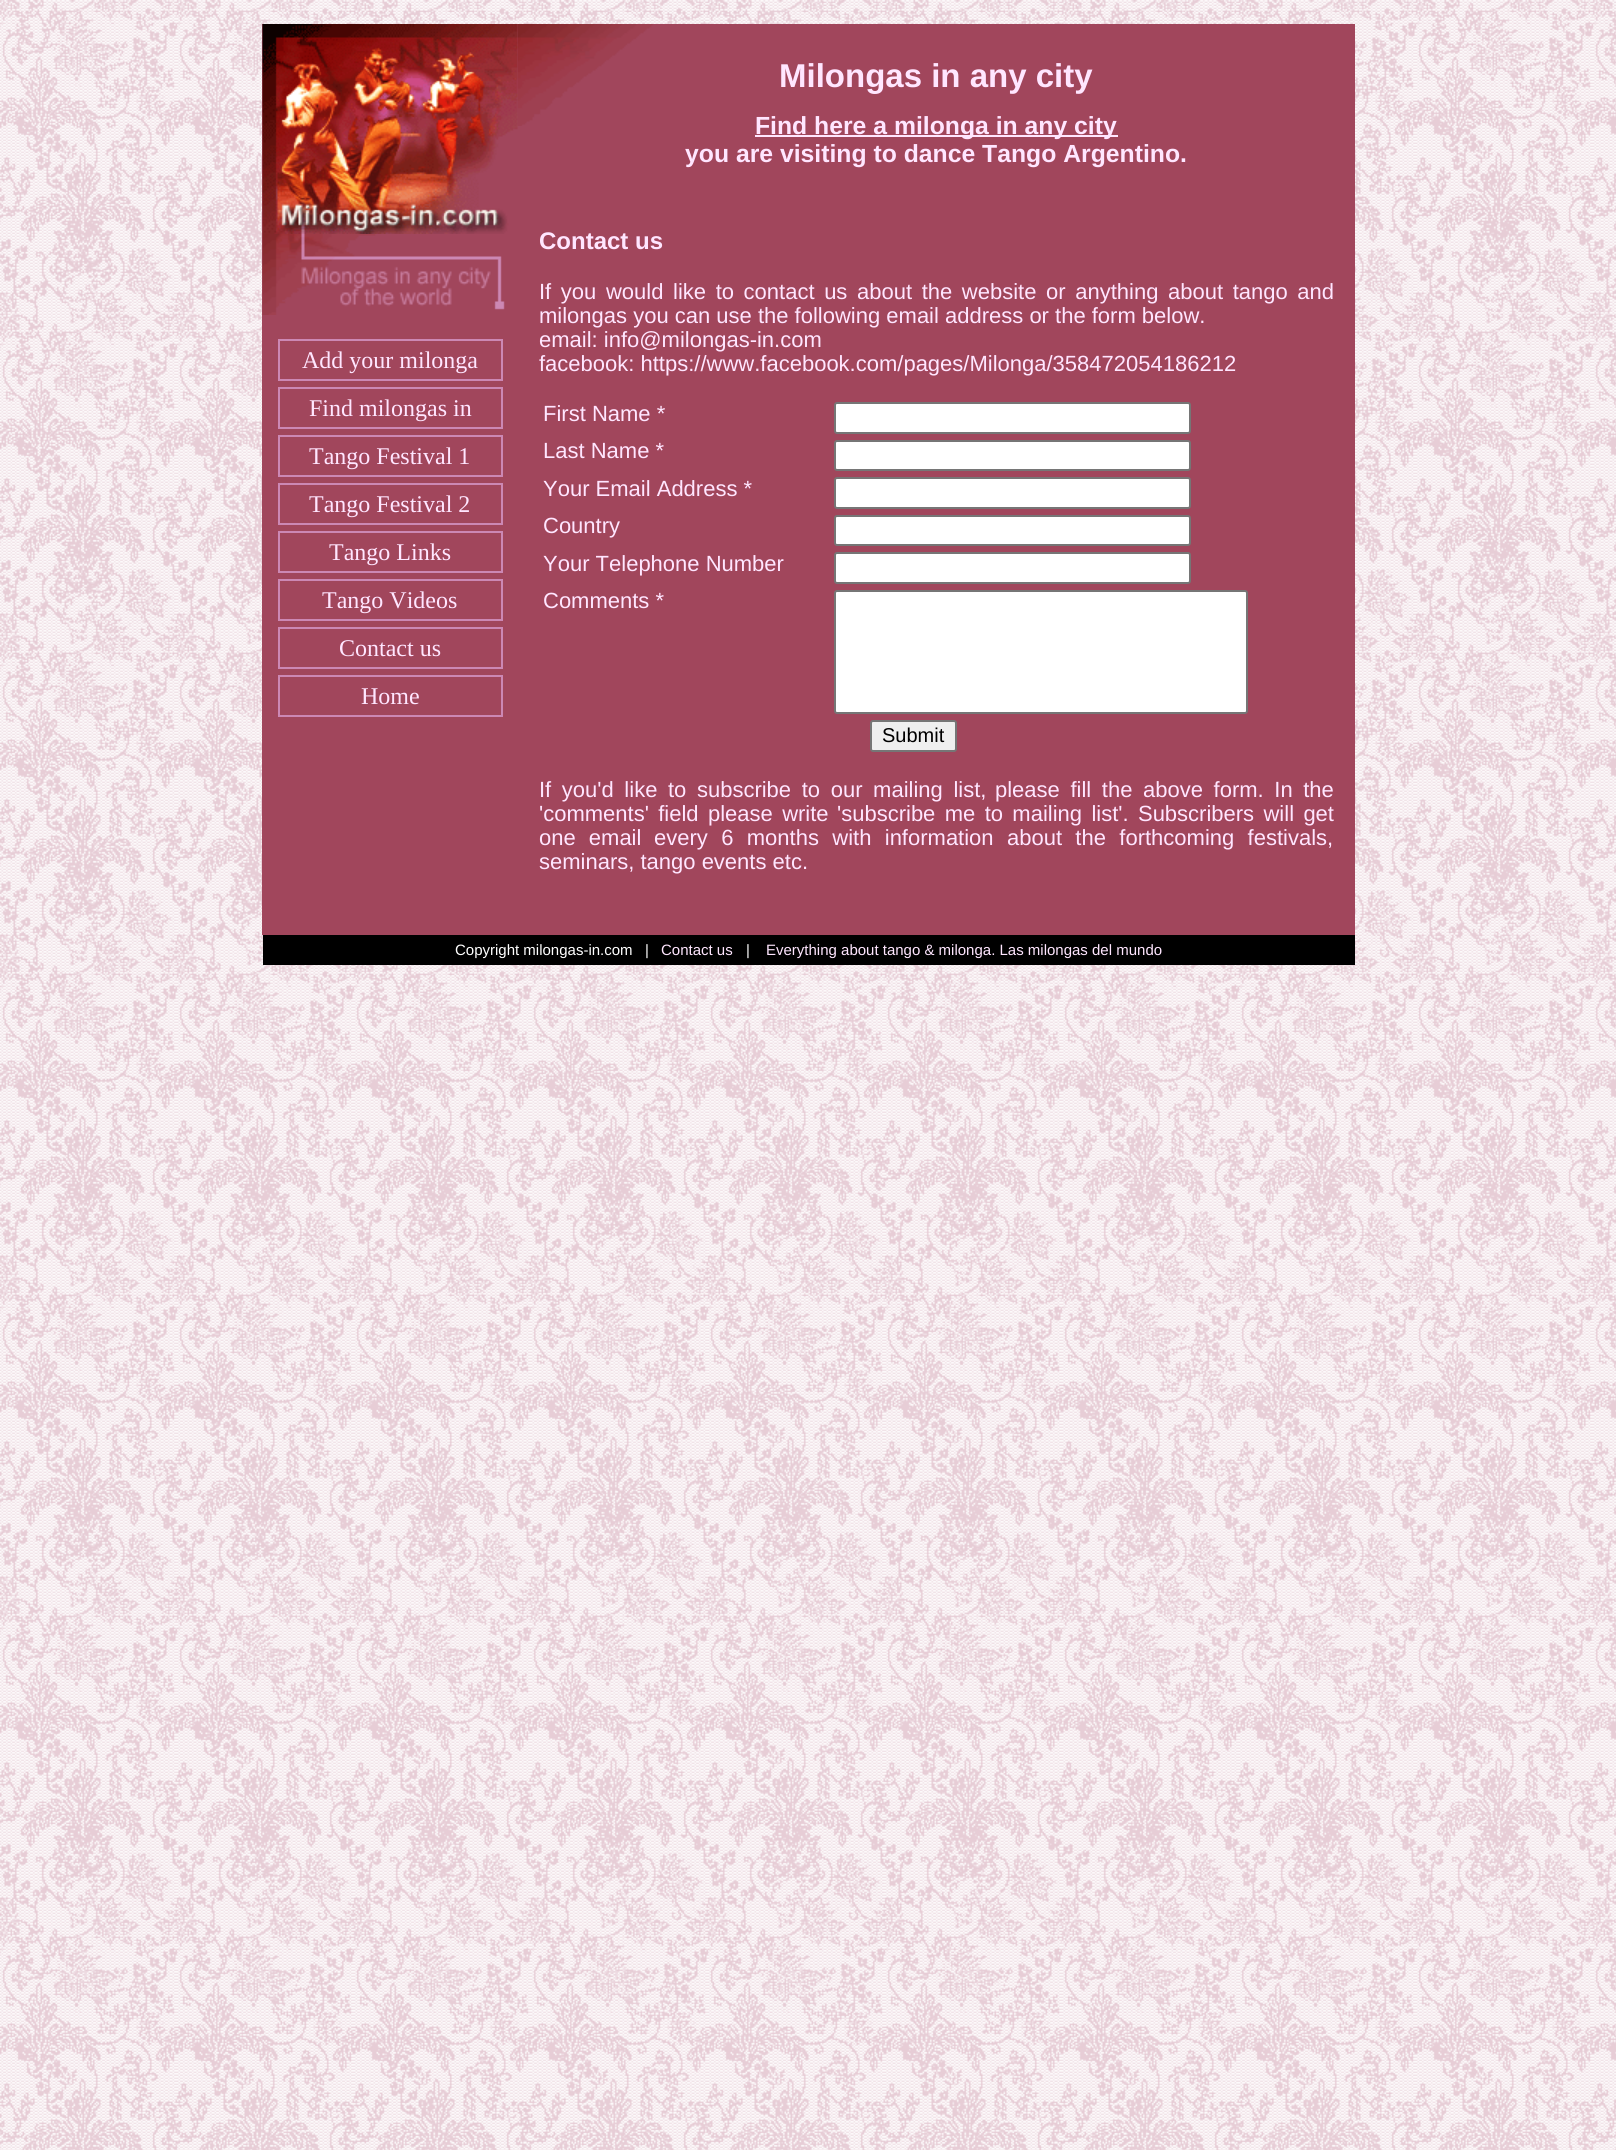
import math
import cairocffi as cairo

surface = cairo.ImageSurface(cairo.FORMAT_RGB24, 1616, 2150)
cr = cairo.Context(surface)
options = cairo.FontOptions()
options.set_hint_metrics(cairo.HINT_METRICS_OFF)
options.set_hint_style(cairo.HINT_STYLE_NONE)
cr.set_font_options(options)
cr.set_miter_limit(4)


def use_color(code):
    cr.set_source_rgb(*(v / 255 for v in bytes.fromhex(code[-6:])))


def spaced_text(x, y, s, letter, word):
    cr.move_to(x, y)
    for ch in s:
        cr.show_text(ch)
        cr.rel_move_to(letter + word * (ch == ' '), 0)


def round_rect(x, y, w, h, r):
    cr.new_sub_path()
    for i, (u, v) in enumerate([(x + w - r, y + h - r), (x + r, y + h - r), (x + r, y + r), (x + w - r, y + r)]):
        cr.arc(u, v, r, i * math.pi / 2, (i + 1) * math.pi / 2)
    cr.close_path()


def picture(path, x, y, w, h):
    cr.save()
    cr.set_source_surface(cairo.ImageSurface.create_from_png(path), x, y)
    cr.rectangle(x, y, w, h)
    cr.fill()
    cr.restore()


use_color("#ffffff")
cr.paint()
picture("img1.png", 0, 0, 1616, 2150)
use_color("#a1465c")
cr.rectangle(262, 24, 1093, 911)
cr.fill()
picture("img2.png", 517, 24, 136, 102)
cr.select_font_face("Liberation Sans", cairo.FONT_SLANT_NORMAL, cairo.FONT_WEIGHT_BOLD)
cr.set_font_size(33)
use_color("#ffe6ff")
cr.move_to(779, 87)
cr.show_text("Milongas in any city")
cr.rectangle(755, 135, 363, 2)
cr.fill()
cr.set_font_size(24.75)
cr.move_to(755, 134)
cr.show_text("Find here a milonga in any city")
cr.move_to(685, 162)
cr.show_text("you are visiting to dance Tango Argentino.")
picture("img3.png", 262, 24, 256, 210)
picture("img4.png", 262, 234, 243, 81)
cr.rectangle(279, 340, 223, 40)
use_color("#cc88b4")
cr.stroke()
cr.select_font_face("Liberation Serif")
cr.set_font_size(24)
use_color("#ffe6ff")
cr.move_to(302, 368)
cr.show_text("Add your milonga")
cr.rectangle(279, 388, 223, 40)
use_color("#cc88b4")
cr.stroke()
use_color("#ffe6ff")
cr.move_to(309, 416)
cr.show_text("Find milongas in")
cr.rectangle(279, 436, 223, 40)
use_color("#cc88b4")
cr.stroke()
use_color("#ffe6ff")
cr.move_to(309, 464)
cr.show_text("Tango Festival 1")
cr.rectangle(279, 484, 223, 40)
use_color("#cc88b4")
cr.stroke()
use_color("#ffe6ff")
cr.move_to(309, 512)
cr.show_text("Tango Festival 2")
cr.rectangle(279, 532, 223, 40)
use_color("#cc88b4")
cr.stroke()
use_color("#ffe6ff")
cr.move_to(329, 560)
cr.show_text("Tango Links")
cr.rectangle(279, 580, 223, 40)
use_color("#cc88b4")
cr.stroke()
use_color("#ffe6ff")
cr.move_to(322, 608)
cr.show_text("Tango Videos")
cr.rectangle(279, 628, 223, 40)
use_color("#cc88b4")
cr.stroke()
use_color("#ffe6ff")
cr.move_to(339, 656)
cr.show_text("Contact us")
cr.rectangle(279, 676, 223, 40)
use_color("#cc88b4")
cr.stroke()
use_color("#ffe6ff")
cr.move_to(361, 704)
cr.show_text("Home")
cr.select_font_face("Liberation Sans", cairo.FONT_SLANT_NORMAL, cairo.FONT_WEIGHT_BOLD)
cr.move_to(539, 249)
cr.show_text("Contact us")
cr.select_font_face("Liberation Sans")
cr.set_font_size(22)
spaced_text(539, 299, "If you would like to contact us about the website or anything about tango and", 0, 3.5)
cr.move_to(539, 323)
cr.show_text("milongas you can use the following email address or the form below.")
cr.move_to(539, 347)
cr.show_text("email: info@milongas-in.com")
cr.move_to(539, 371)
cr.show_text("facebook: https://www.facebook.com/pages/Milonga/358472054186212")
cr.move_to(543, 421)
cr.show_text("First Name *")
use_color("#ffffff")
round_rect(835, 403, 355, 30, 2)
cr.fill_preserve()
use_color("#767676")
cr.stroke()
use_color("#ffe6ff")
cr.move_to(543, 458)
cr.show_text("Last Name *")
use_color("#ffffff")
round_rect(835, 441, 355, 29, 2)
cr.fill_preserve()
use_color("#767676")
cr.stroke()
use_color("#ffe6ff")
cr.move_to(543, 496)
cr.show_text("Your Email Address *")
use_color("#ffffff")
round_rect(835, 478, 355, 30, 2)
cr.fill_preserve()
use_color("#767676")
cr.stroke()
use_color("#ffe6ff")
cr.move_to(543, 533)
cr.show_text("Country")
use_color("#ffffff")
round_rect(835, 516, 355, 29, 2)
cr.fill_preserve()
use_color("#767676")
cr.stroke()
use_color("#ffe6ff")
cr.move_to(543, 571)
cr.show_text("Your Telephone Number")
use_color("#ffffff")
round_rect(835, 553, 355, 30, 2)
cr.fill_preserve()
use_color("#767676")
cr.stroke()
use_color("#ffe6ff")
cr.move_to(543, 608)
cr.show_text("Comments *")
use_color("#ffffff")
round_rect(835, 591, 412, 122, 2)
cr.fill_preserve()
use_color("#767676")
cr.stroke()
use_color("#efefef")
round_rect(871, 721, 85, 30, 2)
cr.fill_preserve()
use_color("#767676")
cr.stroke()
cr.set_font_size(20)
use_color("#000000")
cr.move_to(882, 742)
cr.show_text("Submit")
cr.set_font_size(22)
use_color("#ffe6ff")
spaced_text(539, 797, "If you'd like to subscribe to our mailing list,", 0, 4.5)
spaced_text(995, 797, "please fill the above form. In the", 0, 4.5)
spaced_text(539, 821, "'comments' field please write", 0, 3.25)
spaced_text(837, 821, "'subscribe me to mailing list'. Subscribers will get", 0, 3.25)
spaced_text(539, 845, "one email", 0, 7)
spaced_text(654, 845, "every 6 months with information about the forthcoming festivals,", 0, 7.25)
cr.move_to(539, 869)
cr.show_text("seminars, tango events etc.")
use_color("#000000")
cr.rectangle(263, 935, 1092, 30)
cr.fill()
cr.set_font_size(15)
use_color("#ffffff")
cr.move_to(455, 955)
cr.show_text("Copyright milongas-in.com   |")
use_color("#ffe6ff")
cr.move_to(661, 955)
cr.show_text("Contact us")
use_color("#ffffff")
cr.move_to(746, 955)
cr.show_text("|")
use_color("#ffe6ff")
cr.move_to(766, 955)
cr.show_text("Everything about tango & milonga. Las milongas del mundo")
surface.write_to_png("result.png")
